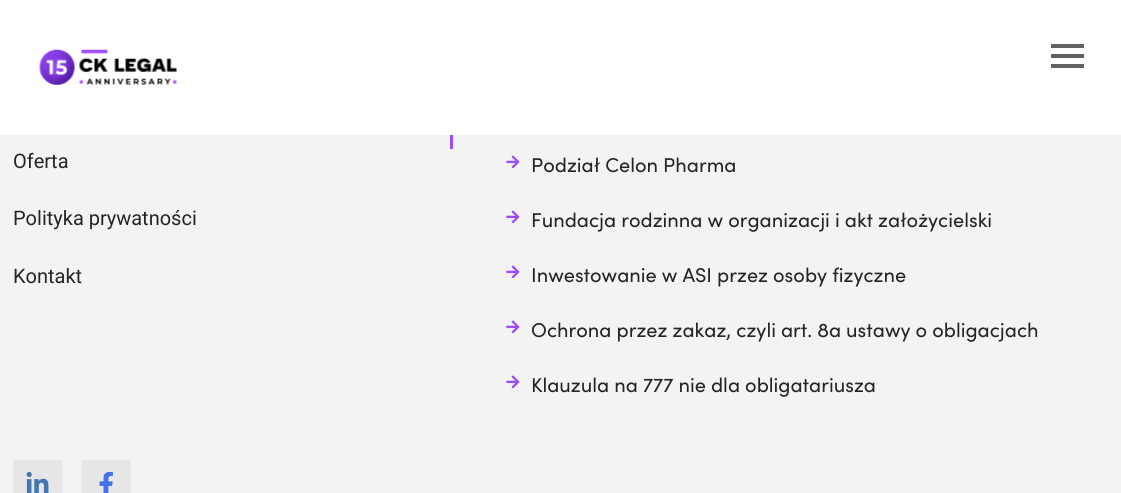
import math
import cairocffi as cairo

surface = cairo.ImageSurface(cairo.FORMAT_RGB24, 1121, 493)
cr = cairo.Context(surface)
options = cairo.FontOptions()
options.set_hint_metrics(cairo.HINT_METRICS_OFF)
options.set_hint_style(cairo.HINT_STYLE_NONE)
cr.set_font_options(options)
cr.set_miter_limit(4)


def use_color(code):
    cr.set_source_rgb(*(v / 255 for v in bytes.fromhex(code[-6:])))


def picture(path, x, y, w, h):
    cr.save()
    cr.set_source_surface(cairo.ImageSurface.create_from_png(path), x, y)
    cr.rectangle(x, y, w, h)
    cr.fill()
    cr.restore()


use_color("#f3f3f3")
cr.paint()
use_color("#ffffff")
cr.rectangle(0, 0, 1121, 135)
cr.fill()
picture("img1.png", 39, 49, 138, 36)
use_color("#616161")
cr.rectangle(1051, 54, 33, 4)
cr.fill()
cr.rectangle(1051, 44, 33, 4)
cr.fill()
cr.rectangle(1051, 64, 33, 4)
cr.fill()
use_color("#9d4cff")
cr.rectangle(450, 135, 3, 14)
cr.fill()
cr.select_font_face("Roboto")
cr.set_font_size(20)
use_color("#252525")
cr.move_to(13, 168)
cr.show_text("Oferta")
cr.move_to(13, 225)
cr.show_text("Polityka prywatności")
cr.move_to(13, 283)
cr.show_text("Kontakt")
picture("img2.png", 506, 155, 14, 14)
cr.select_font_face("Sofia")
cr.move_to(531, 172)
cr.show_text("Podział Celon Pharma")
picture("img2.png", 506, 210, 14, 14)
cr.move_to(531, 227)
cr.show_text("Fundacja rodzinna w organizacji i akt założycielski")
picture("img2.png", 506, 265, 14, 14)
cr.move_to(531, 282)
cr.show_text("Inwestowanie w ASI przez osoby fizyczne")
picture("img2.png", 506, 320, 14, 14)
cr.move_to(531, 337)
cr.show_text("Ochrona przez zakaz, czyli art. 8a ustawy o obligacjach")
picture("img2.png", 506, 375, 14, 14)
cr.move_to(531, 392)
cr.show_text("Klauzula na 777 nie dla obligatariusza")
use_color("#e6e6e6")
cr.rectangle(13, 460, 50, 33)
cr.fill()
picture("img3.png", 26, 471, 23, 22)
cr.rectangle(81, 460, 50, 33)
cr.fill()
picture("img4.png", 99, 471, 14, 22)
surface.write_to_png("result.png")
